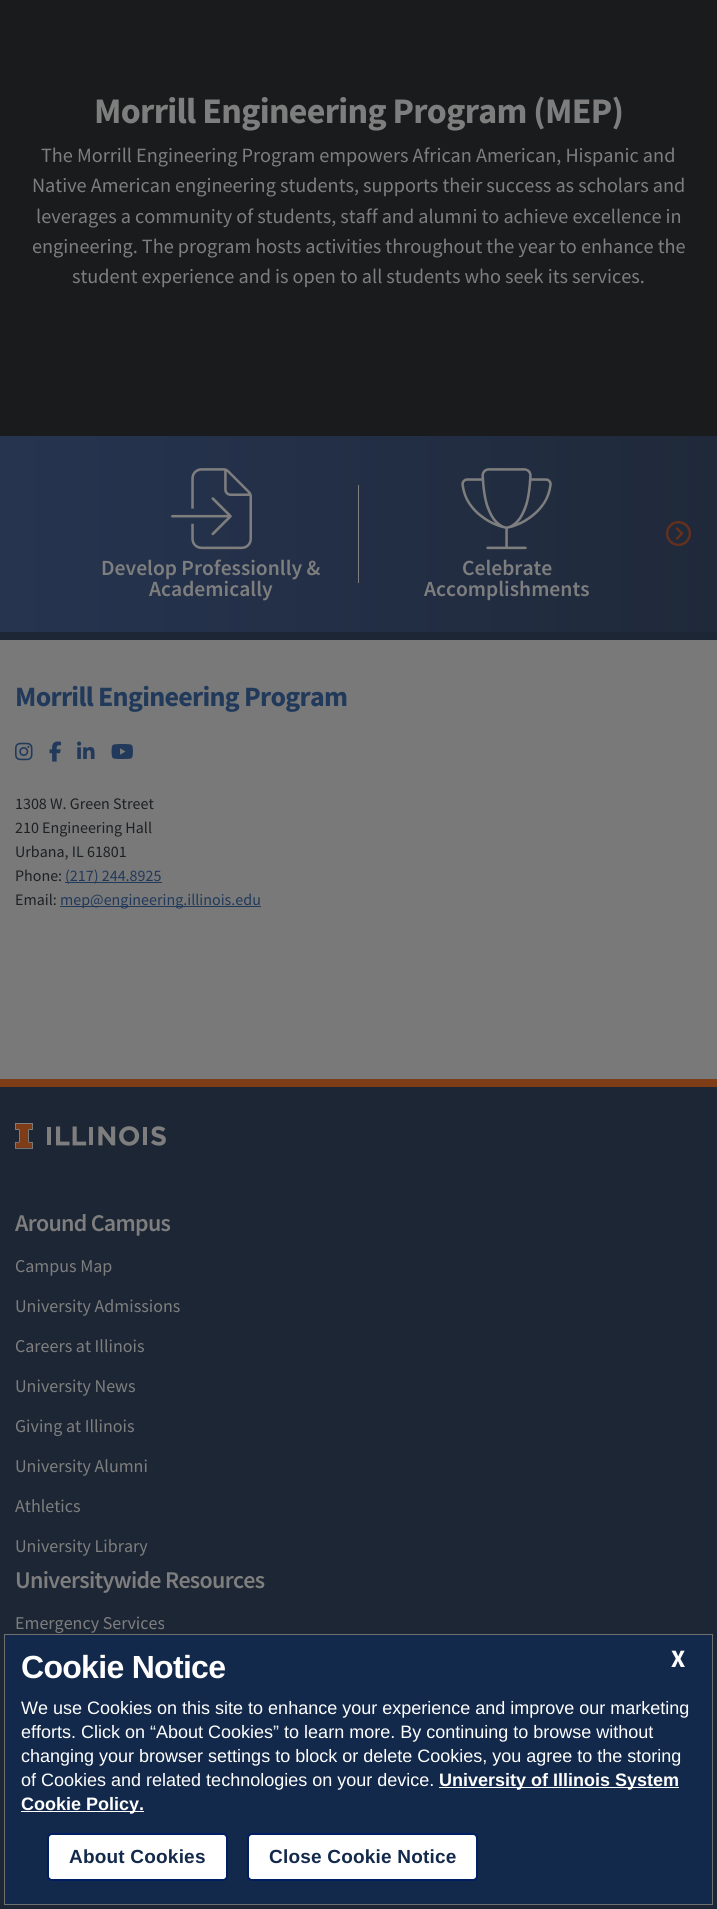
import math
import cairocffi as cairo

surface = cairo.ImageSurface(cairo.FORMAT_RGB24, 717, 1909)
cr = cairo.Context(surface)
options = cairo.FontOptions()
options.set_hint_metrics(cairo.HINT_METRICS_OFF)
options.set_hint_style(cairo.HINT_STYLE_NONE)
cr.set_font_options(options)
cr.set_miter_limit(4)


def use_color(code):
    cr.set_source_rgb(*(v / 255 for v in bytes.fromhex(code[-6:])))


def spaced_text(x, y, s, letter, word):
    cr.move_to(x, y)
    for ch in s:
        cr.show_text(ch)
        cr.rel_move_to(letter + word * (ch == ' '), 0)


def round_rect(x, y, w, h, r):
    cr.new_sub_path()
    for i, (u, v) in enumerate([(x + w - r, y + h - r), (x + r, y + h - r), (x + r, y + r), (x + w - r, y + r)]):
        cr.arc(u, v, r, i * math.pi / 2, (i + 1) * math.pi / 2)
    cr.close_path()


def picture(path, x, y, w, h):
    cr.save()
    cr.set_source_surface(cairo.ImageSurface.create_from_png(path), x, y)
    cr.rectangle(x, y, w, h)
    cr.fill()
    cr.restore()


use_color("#191b1c")
cr.paint()
cr.select_font_face("Source Sans Pro", cairo.FONT_SLANT_NORMAL, cairo.FONT_WEIGHT_BOLD)
cr.set_font_size(36)
use_color("#7e7e7e")
spaced_text(94, 123, "Morrill Engineering Program (MEP)", -0.7, 0)
cr.select_font_face("Source Sans Pro")
cr.set_font_size(20.25)
cr.move_to(41, 162)
cr.show_text("The Morrill Engineering Program empowers African American, Hispanic and")
cr.move_to(32, 192)
cr.show_text("Native American engineering students, supports their success as scholars and")
cr.move_to(36, 223)
cr.show_text("leverages a community of students, staff and alumni to achieve excellence in")
cr.move_to(32, 253)
cr.show_text("engineering. The program hosts activities throughout the year to enhance the")
cr.move_to(72, 283)
cr.show_text("student experience and is open to all students who seek its services.")
gradient = cairo.LinearGradient(0, 534, 717, 534)
gradient.add_color_stop_rgba(0, 0.149, 0.204, 0.314, 1)
gradient.add_color_stop_rgba(1, 0.122, 0.161, 0.227, 1)
cr.set_source(gradient)
cr.rectangle(0, 436, 717, 196)
cr.fill()
picture("img1.png", 666, 521, 25, 25)
picture("img2.png", 171, 468, 81, 82)
cr.select_font_face("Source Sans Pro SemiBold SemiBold")
cr.set_font_size(21.6)
use_color("#7e7e7e")
cr.move_to(101, 575)
cr.show_text("Develop Professionlly &")
cr.move_to(149, 596)
cr.show_text("Academically")
cr.rectangle(358, 485, 1, 98)
cr.fill()
picture("img3.png", 461, 468, 91, 82)
cr.move_to(462, 575)
cr.show_text("Celebrate")
cr.move_to(424, 596)
cr.show_text("Accomplishments")
use_color("#797979")
cr.rectangle(0, 640, 717, 439)
cr.fill()
use_color("#1d2634")
cr.rectangle(0, 632, 717, 8)
cr.fill()
cr.select_font_face("Source Sans Pro", cairo.FONT_SLANT_NORMAL, cairo.FONT_WEIGHT_BOLD)
cr.set_font_size(28)
use_color("#21395a")
spaced_text(15, 706, "Morrill Engineering Program", -0.7, 0)
picture("img4.png", 15, 742, 18, 19)
picture("img5.png", 49, 741, 12, 21)
picture("img6.png", 77, 741, 18, 18)
picture("img7.png", 111, 744, 22, 15)
cr.select_font_face("Source Sans Pro")
cr.set_font_size(16)
use_color("#1d2023")
cr.move_to(15, 809)
cr.show_text("1308 W. Green Street")
cr.move_to(15, 833)
cr.show_text("210 Engineering Hall")
cr.move_to(15, 857)
cr.show_text("Urbana, IL 61801")
cr.move_to(15, 881)
cr.show_text("Phone:")
use_color("#21395a")
cr.rectangle(65, 882, 97, 1)
cr.fill()
cr.move_to(65, 881)
cr.show_text("(217) 244.8925")
use_color("#1d2023")
cr.move_to(15, 905)
cr.show_text("Email:")
use_color("#21395a")
cr.rectangle(60, 906, 201, 1)
cr.fill()
cr.move_to(60, 905)
cr.show_text("mep@engineering.illinois.edu")
use_color("#1d2634")
cr.rectangle(0, 1087, 717, 822)
cr.fill()
use_color("#7e3c17")
cr.rectangle(0, 1079, 717, 8)
cr.fill()
picture("img8.png", 15, 1123, 151, 26)
cr.select_font_face("Source Sans Pro SemiBold SemiBold")
cr.set_font_size(24)
use_color("#7e7e7e")
spaced_text(15, 1231, "Around Campus", -0.7, 0)
cr.select_font_face("Source Sans Pro")
cr.set_font_size(18)
cr.move_to(15, 1272)
cr.show_text("Campus Map")
cr.move_to(15, 1312)
cr.show_text("University Admissions")
cr.move_to(15, 1352)
cr.show_text("Careers at Illinois")
cr.move_to(15, 1392)
cr.show_text("University News")
cr.move_to(15, 1432)
cr.show_text("Giving at Illinois")
cr.move_to(15, 1472)
cr.show_text("University Alumni")
cr.move_to(15, 1512)
cr.show_text("Athletics")
cr.move_to(15, 1552)
cr.show_text("University Library")
cr.select_font_face("Source Sans Pro SemiBold SemiBold")
cr.set_font_size(24)
spaced_text(15, 1588, "Universitywide Resources", -0.7, 0)
cr.select_font_face("Source Sans Pro")
cr.set_font_size(18)
cr.move_to(15, 1629)
cr.show_text("Emergency Services")
use_color("#13294b")
cr.rectangle(4.5, 1634.5, 708, 270)
cr.fill_preserve()
use_color("#707070")
cr.set_line_width(1)
cr.stroke()
cr.select_font_face("Liberation Sans", cairo.FONT_SLANT_NORMAL, cairo.FONT_WEIGHT_BOLD)
cr.set_font_size(32)
use_color("#ffffff")
spaced_text(21, 1678, "Cookie Notice", -0.7, 0)
cr.select_font_face("Source Sans Pro", cairo.FONT_SLANT_NORMAL, cairo.FONT_WEIGHT_BOLD)
cr.set_font_size(25)
cr.move_to(671, 1667)
cr.show_text("X")
cr.select_font_face("Liberation Sans")
cr.set_font_size(18)
cr.move_to(21, 1714)
cr.show_text("We use Cookies on this site to enhance your experience and improve our marketing")
cr.move_to(21, 1738)
cr.show_text("efforts. Click on “About Cookies” to learn more. By continuing to browse without")
cr.move_to(21, 1762)
cr.show_text("changing your browser settings to block or delete Cookies, you agree to the storing")
cr.move_to(21, 1786)
cr.show_text("of Cookies and related technologies on your device.")
cr.rectangle(439, 1787, 240, 1)
cr.fill()
cr.select_font_face("Liberation Sans", cairo.FONT_SLANT_NORMAL, cairo.FONT_WEIGHT_BOLD)
cr.move_to(439, 1786)
cr.show_text("University of Illinois System")
cr.rectangle(21, 1811, 123, 1)
cr.fill()
cr.move_to(21, 1810)
cr.show_text("Cookie Policy.")
round_rect(48, 1834, 179, 46, 4)
cr.fill_preserve()
use_color("#001e62")
cr.set_line_width(2)
cr.stroke()
cr.set_font_size(19)
use_color("#13294b")
spaced_text(69, 1863, "About Cookies", 0.2, 0)
use_color("#ffffff")
round_rect(248, 1834, 229, 46, 4)
cr.fill_preserve()
use_color("#001e62")
cr.stroke()
use_color("#13294b")
spaced_text(269, 1863, "Close Cookie Notice", 0.2, 0)
surface.write_to_png("result.png")
